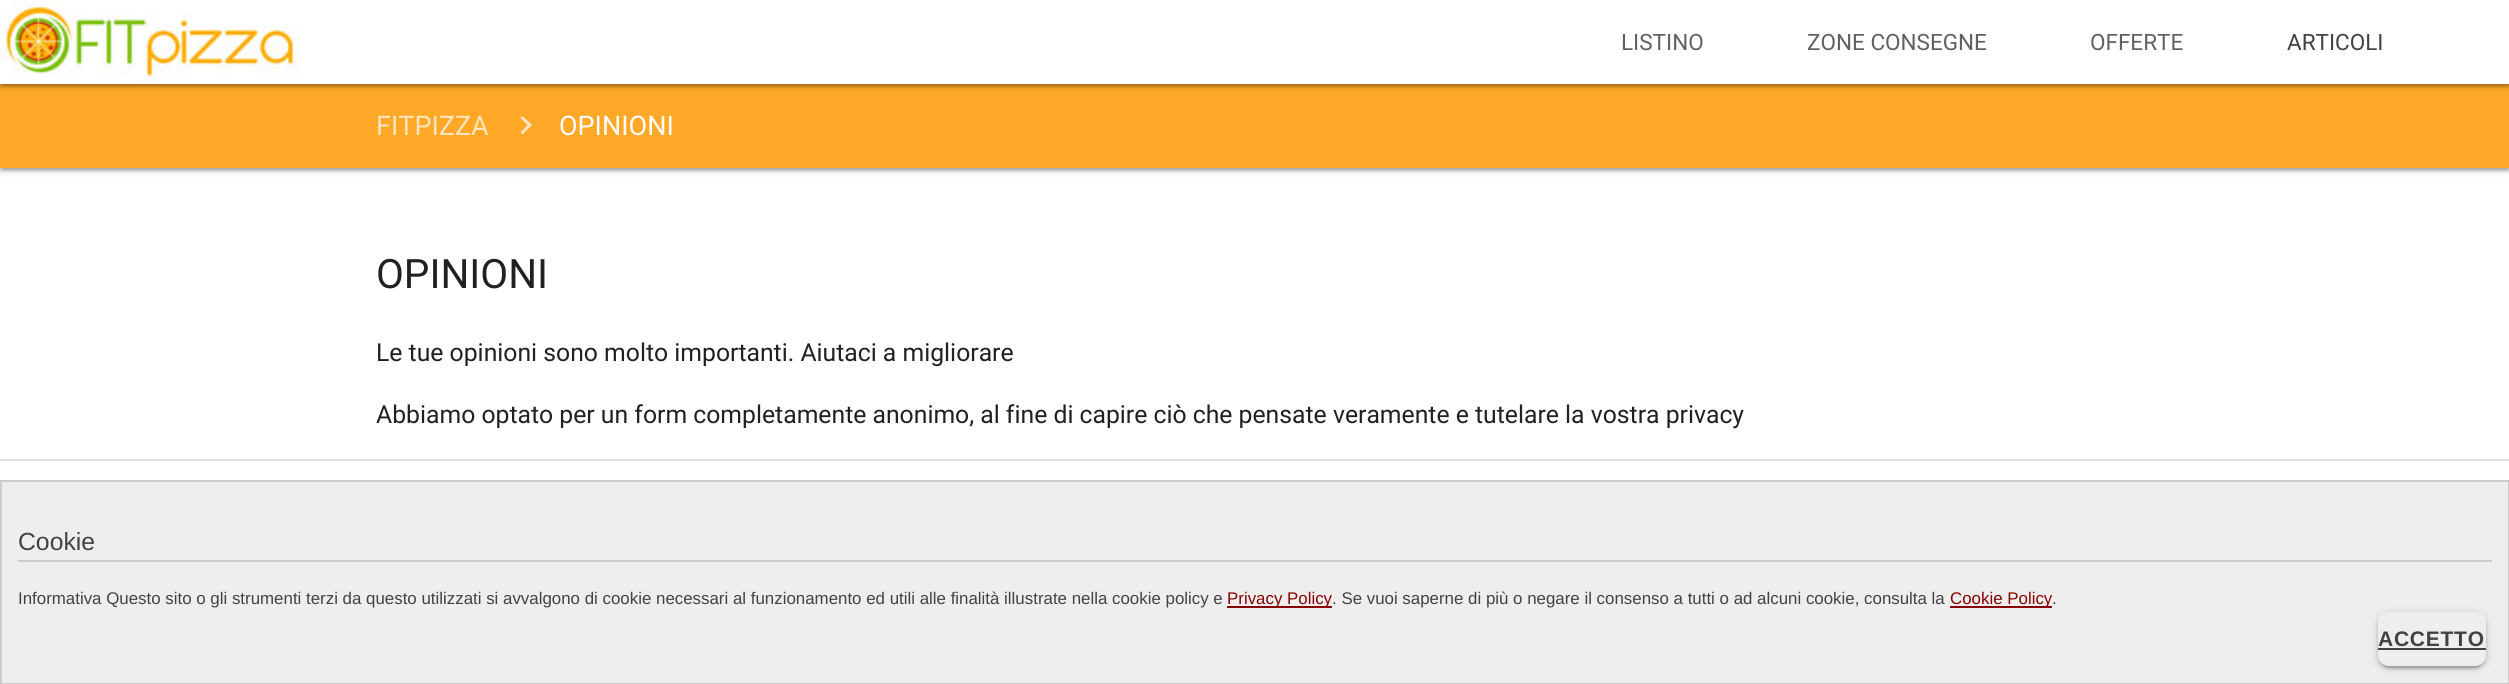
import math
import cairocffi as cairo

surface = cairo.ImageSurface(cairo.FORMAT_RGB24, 2509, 684)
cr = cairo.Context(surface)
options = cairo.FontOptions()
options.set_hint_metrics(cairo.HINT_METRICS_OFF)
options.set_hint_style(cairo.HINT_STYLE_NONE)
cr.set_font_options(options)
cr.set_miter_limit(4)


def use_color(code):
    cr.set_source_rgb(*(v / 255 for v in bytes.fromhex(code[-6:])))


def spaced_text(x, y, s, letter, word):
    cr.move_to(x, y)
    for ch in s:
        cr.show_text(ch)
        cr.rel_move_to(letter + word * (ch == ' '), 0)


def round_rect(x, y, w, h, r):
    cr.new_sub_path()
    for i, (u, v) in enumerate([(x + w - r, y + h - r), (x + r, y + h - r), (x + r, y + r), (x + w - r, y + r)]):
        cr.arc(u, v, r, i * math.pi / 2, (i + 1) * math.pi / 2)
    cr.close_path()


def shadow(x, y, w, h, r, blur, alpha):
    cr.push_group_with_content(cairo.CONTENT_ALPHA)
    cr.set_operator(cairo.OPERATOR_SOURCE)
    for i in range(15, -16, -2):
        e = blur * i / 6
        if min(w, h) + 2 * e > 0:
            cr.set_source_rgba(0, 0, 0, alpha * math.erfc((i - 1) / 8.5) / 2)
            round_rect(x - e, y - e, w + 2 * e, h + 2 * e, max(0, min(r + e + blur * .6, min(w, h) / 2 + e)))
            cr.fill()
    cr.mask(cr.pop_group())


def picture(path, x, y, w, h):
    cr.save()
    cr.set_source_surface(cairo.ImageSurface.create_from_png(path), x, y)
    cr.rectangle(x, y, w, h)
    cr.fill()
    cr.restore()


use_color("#ffffff")
cr.paint()
use_color("#000000")
shadow(0, 86, 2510, 84, 0, 4, 0.2)
shadow(3, 92, 2504, 78, 0, 1, 0.12)
shadow(0, 87, 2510, 84, 0, 1.5, 0.14)
use_color("#ffa726")
cr.rectangle(0, 84, 2509, 84)
cr.fill()
use_color("#000000")
shadow(0, 2, 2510, 84, 0, 4, 0.2)
shadow(3, 8, 2504, 78, 0, 1, 0.12)
shadow(0, 3, 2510, 84, 0, 1.5, 0.14)
use_color("#ffffff")
cr.rectangle(0, 0, 2509, 84)
cr.fill()
picture("img1.png", 0, 1, 300, 83)
cr.select_font_face("Roboto")
cr.set_font_size(22.5)
use_color("#616161")
cr.move_to(1621, 50)
cr.show_text("LISTINO")
cr.move_to(1807, 50)
cr.show_text("ZONE CONSEGNE")
cr.move_to(2090, 50)
cr.show_text("OFFERTE")
use_color("#424242")
cr.move_to(2287, 50)
cr.show_text("ARTICOLI")
cr.set_font_size(27)
use_color("#ffe5be")
cr.move_to(376, 135)
cr.show_text("FITPIZZA")
cr.new_path()
cr.move_to(522.5, 116)
cr.line_to(532, 125)
cr.line_to(522.5, 134.5)
cr.line_to(520.5, 132.5)
cr.line_to(527.5, 125)
cr.line_to(520.5, 118)
cr.close_path()
cr.fill()
use_color("#ffffff")
cr.move_to(559, 135)
cr.show_text("OPINIONI")
cr.set_font_size(40.5)
use_color("#212121")
cr.move_to(376, 288)
cr.show_text("OPINIONI")
cr.set_font_size(24.75)
cr.move_to(376, 361)
cr.show_text("Le tue opinioni sono molto importanti. Aiutaci a migliorare")
cr.move_to(376, 423)
cr.show_text("Abbiamo optato per un form completamente anonimo, al fine di capire ciò che pensate veramente e tutelare la vostra privacy")
use_color("#e0e0e0")
cr.rectangle(0, 459, 2509, 2)
cr.fill()
cr.rectangle(1, 481, 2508, 202)
use_color("#cccccc")
cr.stroke()
use_color("#eeeeee")
cr.rectangle(2, 482, 2506, 201)
cr.fill()
use_color("#cccccc")
cr.rectangle(18, 560, 2474, 2)
cr.fill()
cr.select_font_face("Liberation Sans")
use_color("#424242")
cr.move_to(18, 550)
cr.show_text("Cookie")
cr.set_font_size(16.88)
cr.move_to(18, 604)
cr.show_text("Informativa Questo sito o gli strumenti terzi da questo utilizzati si avvalgono di cookie necessari al funzionamento ed utili alle finalità illustrate nella cookie policy e")
use_color("#880000")
cr.rectangle(1227, 606, 105, 2)
cr.fill()
cr.move_to(1227, 604)
cr.show_text("Privacy Policy")
use_color("#424242")
cr.move_to(1332, 604)
cr.show_text(". Se vuoi saperne di più o negare il consenso a tutti o ad alcuni cookie, consulta la")
use_color("#880000")
cr.rectangle(1950, 606, 102, 2)
cr.fill()
cr.move_to(1950, 604)
cr.show_text("Cookie Policy")
use_color("#424242")
cr.move_to(2052, 604)
cr.show_text(".")
cr.save()
cr.set_fill_rule(cairo.FILL_RULE_EVEN_ODD)
cr.new_path()
cr.move_to(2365, 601)
cr.line_to(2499, 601)
cr.line_to(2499, 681)
cr.line_to(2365, 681)
cr.close_path()
cr.move_to(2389, 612)
cr.line_to(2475, 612)
cr.curve_to(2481, 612, 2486, 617, 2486, 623)
cr.line_to(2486, 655)
cr.curve_to(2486, 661, 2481, 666, 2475, 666)
cr.line_to(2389, 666)
cr.curve_to(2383, 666, 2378, 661, 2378, 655)
cr.line_to(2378, 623)
cr.curve_to(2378, 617, 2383, 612, 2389, 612)
cr.close_path()
cr.clip()
use_color("#000000")
shadow(2378, 614, 108, 54, 11, 4, 0.2)
cr.restore()
cr.save()
cr.set_fill_rule(cairo.FILL_RULE_EVEN_ODD)
cr.new_path()
cr.move_to(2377, 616)
cr.line_to(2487, 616)
cr.line_to(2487, 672)
cr.line_to(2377, 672)
cr.close_path()
cr.move_to(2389, 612)
cr.line_to(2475, 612)
cr.curve_to(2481, 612, 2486, 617, 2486, 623)
cr.line_to(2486, 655)
cr.curve_to(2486, 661, 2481, 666, 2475, 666)
cr.line_to(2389, 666)
cr.curve_to(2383, 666, 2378, 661, 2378, 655)
cr.line_to(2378, 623)
cr.curve_to(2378, 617, 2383, 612, 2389, 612)
cr.close_path()
cr.clip()
use_color("#000000")
shadow(2381, 620, 102, 48, 8, 1, 0.12)
cr.restore()
cr.save()
cr.set_fill_rule(cairo.FILL_RULE_EVEN_ODD)
cr.new_path()
cr.move_to(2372, 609)
cr.line_to(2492, 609)
cr.line_to(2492, 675)
cr.line_to(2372, 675)
cr.close_path()
cr.move_to(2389, 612)
cr.line_to(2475, 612)
cr.curve_to(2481, 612, 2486, 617, 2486, 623)
cr.line_to(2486, 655)
cr.curve_to(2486, 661, 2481, 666, 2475, 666)
cr.line_to(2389, 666)
cr.curve_to(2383, 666, 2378, 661, 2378, 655)
cr.line_to(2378, 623)
cr.curve_to(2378, 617, 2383, 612, 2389, 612)
cr.close_path()
cr.clip()
use_color("#000000")
shadow(2378, 615, 108, 54, 11, 1.5, 0.14)
cr.restore()
cr.select_font_face("Liberation Sans", cairo.FONT_SLANT_NORMAL, cairo.FONT_WEIGHT_BOLD)
cr.set_font_size(21)
spaced_text(2378, 646, "ACCETTO", 0.75, 0)
use_color("#444444")
cr.rectangle(2378, 648, 108, 2)
cr.fill()
surface.write_to_png("result.png")
